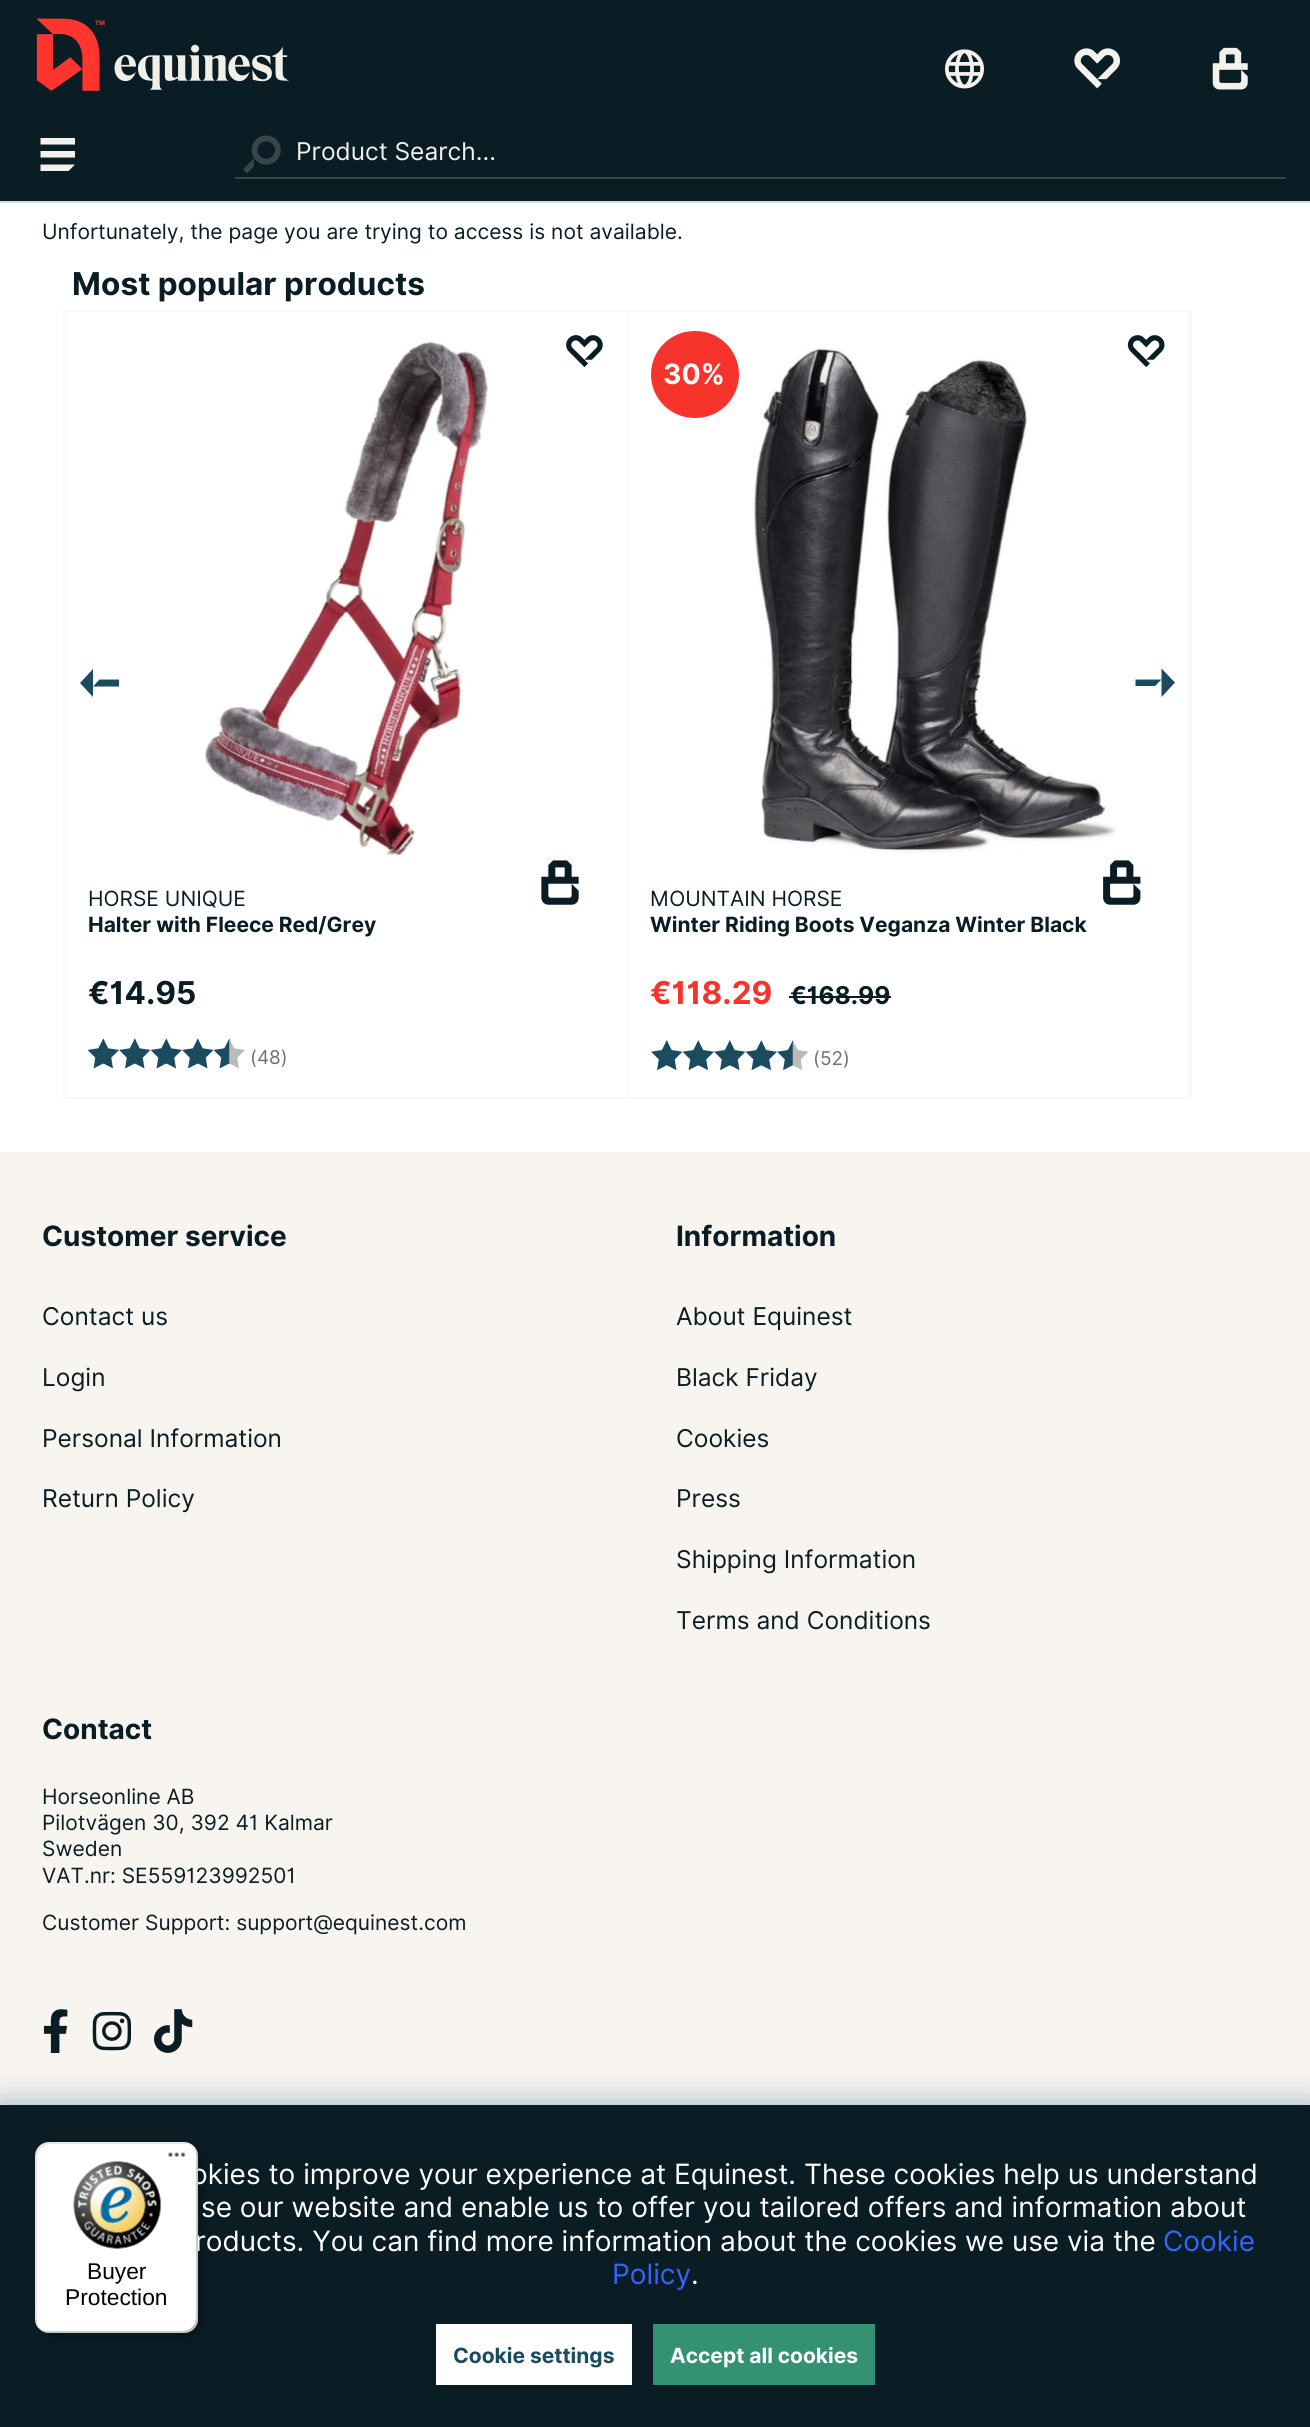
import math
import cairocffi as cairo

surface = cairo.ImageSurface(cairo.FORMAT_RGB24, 1310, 2427)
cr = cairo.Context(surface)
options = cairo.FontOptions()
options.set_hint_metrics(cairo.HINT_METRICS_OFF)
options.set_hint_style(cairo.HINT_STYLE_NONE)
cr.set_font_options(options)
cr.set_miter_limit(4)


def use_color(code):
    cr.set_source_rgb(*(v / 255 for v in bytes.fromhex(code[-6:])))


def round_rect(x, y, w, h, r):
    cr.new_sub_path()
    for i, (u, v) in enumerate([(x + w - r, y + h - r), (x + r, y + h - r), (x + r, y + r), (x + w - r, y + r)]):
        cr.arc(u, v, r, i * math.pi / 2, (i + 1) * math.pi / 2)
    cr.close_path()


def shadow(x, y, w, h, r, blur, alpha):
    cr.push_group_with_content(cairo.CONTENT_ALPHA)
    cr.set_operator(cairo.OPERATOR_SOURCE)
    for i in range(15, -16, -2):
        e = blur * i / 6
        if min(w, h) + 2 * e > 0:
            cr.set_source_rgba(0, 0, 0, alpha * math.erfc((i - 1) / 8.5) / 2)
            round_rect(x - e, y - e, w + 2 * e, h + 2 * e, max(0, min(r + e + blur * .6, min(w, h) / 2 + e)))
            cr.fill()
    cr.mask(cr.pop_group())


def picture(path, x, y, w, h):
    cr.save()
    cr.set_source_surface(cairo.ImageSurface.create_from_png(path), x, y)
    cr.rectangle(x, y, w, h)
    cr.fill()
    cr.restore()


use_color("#ffffff")
cr.paint()
use_color("#0a1c24")
cr.rectangle(0, 0, 1310, 201)
cr.fill()
use_color("#dddddd")
cr.rectangle(0, 201, 1310, 2)
cr.fill()
picture("img1.png", 36, 18, 69, 73)
picture("img2.png", 114, 44, 175, 46)
picture("img3.png", 945, 49, 39, 40)
picture("img4.png", 1074, 48, 47, 41)
picture("img5.png", 1212, 47, 36, 43)
use_color("#f2f1ec")
cr.new_path()
cr.move_to(75, 164.5)
cr.line_to(68.5, 171)
cr.line_to(40.5, 171)
cr.line_to(40.5, 164.5)
cr.close_path()
cr.move_to(75, 151)
cr.line_to(75, 157.5)
cr.line_to(40.5, 157.5)
cr.line_to(40.5, 151)
cr.close_path()
cr.move_to(75, 138)
cr.line_to(75, 144.5)
cr.line_to(40.5, 144.5)
cr.line_to(40.5, 138)
cr.close_path()
cr.fill()
picture("img6.png", 243, 135, 38, 38)
use_color("#38464b")
cr.rectangle(235, 177, 1051, 2)
cr.fill()
cr.select_font_face("Inter")
cr.set_font_size(24.5)
use_color("#f2f1ec")
cr.move_to(296, 160)
cr.show_text("Product Search...")
cr.set_font_size(21)
use_color("#0a1c24")
cr.move_to(42, 239)
cr.show_text("Unfortunately, the page you are trying to access is not available.")
cr.select_font_face("Inter", cairo.FONT_SLANT_NORMAL, cairo.FONT_WEIGHT_BOLD)
cr.set_font_size(31.5)
cr.move_to(72, 295)
cr.show_text("Most popular products")
cr.rectangle(64, 311, 1127, 787)
use_color("#f9f9f9")
cr.stroke()
cr.rectangle(627, 312, 1, 784)
cr.fill()
cr.rectangle(65, 312, 2, 784)
cr.fill()
picture("img7.png", 204, 341, 284, 516)
picture("img8.png", 566, 335, 37, 33)
picture("img9.png", 541, 860, 38, 45)
cr.select_font_face("Inter")
cr.set_font_size(21)
use_color("#0a1c24")
cr.move_to(88, 906)
cr.show_text("HORSE UNIQUE")
cr.select_font_face("Inter", cairo.FONT_SLANT_NORMAL, cairo.FONT_WEIGHT_BOLD)
cr.move_to(88, 932)
cr.show_text("Halter with Fleece Red/Grey")
cr.set_font_size(31.5)
cr.move_to(88, 1004)
cr.show_text("€14.95")
picture("img10.png", 88, 1038, 31, 31)
picture("img11.png", 119, 1038, 32, 31)
picture("img10.png", 151, 1038, 31, 31)
picture("img11.png", 182, 1038, 32, 31)
picture("img12.png", 214, 1038, 31, 31)
cr.select_font_face("Inter")
cr.set_font_size(19)
use_color("#716f6f")
cr.move_to(250, 1064)
cr.show_text("(48)")
use_color("#f9f9f9")
cr.rectangle(1188, 312, 2, 785)
cr.fill()
cr.rectangle(628, 312, 2, 785)
cr.fill()
picture("img13.png", 1127, 335, 38, 33)
use_color("#f6342b")
round_rect(651, 331, 88, 87, 43.5)
cr.fill()
cr.select_font_face("Inter", cairo.FONT_SLANT_NORMAL, cairo.FONT_WEIGHT_BOLD)
cr.set_font_size(28)
use_color("#ffffff")
cr.move_to(663, 384)
cr.show_text("30%")
picture("img14.png", 753, 348, 363, 507)
picture("img15.png", 1103, 860, 38, 45)
cr.select_font_face("Inter")
cr.set_font_size(21)
use_color("#0a1c24")
cr.move_to(650, 906)
cr.show_text("MOUNTAIN HORSE")
cr.select_font_face("Inter", cairo.FONT_SLANT_NORMAL, cairo.FONT_WEIGHT_BOLD)
cr.move_to(650, 932)
cr.show_text("Winter Riding Boots Veganza Winter Black")
cr.set_font_size(31.5)
use_color("#f6342b")
cr.move_to(650, 1004)
cr.show_text("€118.29")
cr.set_font_size(24.5)
use_color("#0a1c24")
cr.move_to(790, 1004)
cr.show_text("€168.99")
cr.rectangle(789, 996, 102, 2)
cr.fill()
picture("img16.png", 651, 1040, 32, 31)
picture("img17.png", 683, 1040, 31, 31)
picture("img16.png", 714, 1040, 32, 31)
picture("img17.png", 746, 1040, 31, 31)
picture("img18.png", 777, 1040, 32, 31)
cr.select_font_face("Inter")
cr.set_font_size(19)
use_color("#716f6f")
cr.move_to(813, 1065)
cr.show_text("(52)")
use_color("#1a4b5f")
cr.new_path()
cr.move_to(1161.5, 668.5)
cr.line_to(1175, 682.5)
cr.line_to(1161.5, 697)
cr.close_path()
cr.move_to(1161.5, 679.5)
cr.line_to(1155, 686)
cr.line_to(1135.5, 686)
cr.line_to(1135.5, 679.5)
cr.close_path()
cr.fill()
cr.new_path()
cr.move_to(93, 697)
cr.line_to(80, 683)
cr.line_to(93, 669)
cr.close_path()
cr.move_to(93, 686.5)
cr.line_to(99.5, 679.5)
cr.line_to(119, 679.5)
cr.line_to(119, 686.5)
cr.close_path()
cr.fill()
use_color("#f8f5f0")
cr.rectangle(0, 1152, 1310, 953)
cr.fill()
cr.select_font_face("Inter", cairo.FONT_SLANT_NORMAL, cairo.FONT_WEIGHT_BOLD)
cr.set_font_size(28)
use_color("#0a1c24")
cr.move_to(42, 1246)
cr.show_text("Customer service")
cr.select_font_face("Inter")
cr.set_font_size(24.5)
cr.move_to(42, 1325)
cr.show_text("Contact us")
cr.move_to(42, 1386)
cr.show_text("Login")
cr.move_to(42, 1447)
cr.show_text("Personal Information")
cr.move_to(42, 1507)
cr.show_text("Return Policy")
cr.select_font_face("Inter", cairo.FONT_SLANT_NORMAL, cairo.FONT_WEIGHT_BOLD)
cr.set_font_size(28)
cr.move_to(676, 1246)
cr.show_text("Information")
cr.select_font_face("Inter")
cr.set_font_size(24.5)
cr.move_to(676, 1325)
cr.show_text("About Equinest")
cr.move_to(676, 1386)
cr.show_text("Black Friday")
cr.move_to(676, 1447)
cr.show_text("Cookies")
cr.move_to(676, 1507)
cr.show_text("Press")
cr.move_to(676, 1568)
cr.show_text("Shipping Information")
cr.move_to(676, 1629)
cr.show_text("Terms and Conditions")
cr.select_font_face("Inter", cairo.FONT_SLANT_NORMAL, cairo.FONT_WEIGHT_BOLD)
cr.set_font_size(28)
cr.move_to(42, 1739)
cr.show_text("Contact")
cr.select_font_face("Inter")
cr.set_font_size(21)
cr.move_to(42, 1804)
cr.show_text("Horseonline AB")
cr.move_to(42, 1830)
cr.show_text("Pilotvägen 30, 392 41 Kalmar")
cr.move_to(42, 1856)
cr.show_text("Sweden")
cr.move_to(42, 1883)
cr.show_text("VAT.nr: SE559123992501")
cr.move_to(42, 1930)
cr.show_text("Customer Support: support@equinest.com")
picture("img19.png", 43, 2009, 25, 44)
picture("img20.png", 92, 2011, 40, 40)
picture("img21.png", 154, 2009, 39, 44)
use_color("#00427a")
shadow(0, 2107, 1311, 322, 0, 17.5, 0.44)
use_color("#0a1c24")
cr.rectangle(0, 2105, 1310, 322)
cr.fill()
use_color("#000000")
shadow(40, 2147, 163, 191, 14, 7, 0.15)
shadow(37, 2144, 163, 191, 14, 2, 0.15)
use_color("#ffffff")
round_rect(35, 2142, 163, 191, 14)
cr.fill()
cr.set_source_rgba(0, 0, 0, 0.1)
cr.new_path()
cr.move_to(51, 2144)
cr.line_to(186, 2144)
cr.curve_to(189, 2144, 193, 2145, 195, 2148)
cr.curve_to(193, 2144, 189, 2142, 184, 2142)
cr.line_to(49, 2142)
cr.curve_to(41, 2142, 35, 2148, 35, 2156)
cr.line_to(35, 2319)
cr.curve_to(35, 2325, 38, 2329, 43, 2332)
cr.curve_to(39, 2329, 37, 2325, 37, 2320)
cr.line_to(37, 2158)
cr.curve_to(37, 2150, 43, 2144, 51, 2144)
cr.close_path()
cr.fill()
cr.set_font_size(28)
use_color("#ffffff")
cr.move_to(191, 2184)
cr.show_text("okies to improve your experience at Equinest. These cookies help us understand")
cr.move_to(195, 2251)
cr.show_text("roducts. You can find more information about the cookies we use via the")
cr.set_source_rgba(0, 0, 0, 0.2)
cr.new_path()
cr.move_to(38, 2327)
cr.curve_to(40, 2331, 44, 2333, 49, 2333)
cr.line_to(184, 2333)
cr.curve_to(192, 2333, 198, 2327, 198, 2319)
cr.line_to(198, 2156)
cr.curve_to(198, 2151, 196, 2147, 192, 2145)
cr.curve_to(195, 2147, 196, 2151, 196, 2154)
cr.line_to(196, 2317)
cr.curve_to(196, 2325, 190, 2331, 182, 2331)
cr.line_to(47, 2331)
cr.curve_to(44, 2331, 40, 2330, 38, 2327)
cr.close_path()
cr.fill()
cr.set_source_rgba(0.196, 0.196, 0.196, 0.2)
cr.new_path()
cr.move_to(38, 2327)
cr.curve_to(40, 2331, 44, 2333, 49, 2333)
cr.line_to(184, 2333)
cr.curve_to(192, 2333, 198, 2327, 198, 2319)
cr.line_to(198, 2156)
cr.curve_to(198, 2151, 196, 2147, 192, 2145)
cr.curve_to(195, 2147, 197, 2151, 197, 2155)
cr.line_to(197, 2318)
cr.curve_to(197, 2325, 190, 2332, 183, 2332)
cr.line_to(48, 2332)
cr.curve_to(44, 2332, 40, 2330, 38, 2327)
cr.close_path()
cr.fill()
cr.set_source_rgba(1, 1, 1, 0.3)
cr.new_path()
cr.move_to(40, 2329)
cr.curve_to(42, 2332, 45, 2333, 49, 2333)
cr.line_to(184, 2333)
cr.curve_to(192, 2333, 198, 2327, 198, 2319)
cr.line_to(198, 2156)
cr.curve_to(198, 2152, 197, 2149, 194, 2147)
cr.curve_to(196, 2149, 197, 2152, 197, 2155)
cr.line_to(197, 2318)
cr.curve_to(197, 2326, 191, 2332, 183, 2332)
cr.line_to(48, 2332)
cr.curve_to(45, 2332, 42, 2331, 40, 2329)
cr.close_path()
cr.fill()
picture("img22.png", 168, 2152, 18, 5)
picture("img23.png", 73, 2161, 88, 88)
cr.select_font_face("Liberation Sans")
cr.set_font_size(22.75)
use_color("#000000")
cr.move_to(87, 2279)
cr.show_text("Buyer")
cr.move_to(65, 2305)
cr.show_text("Protection")
cr.select_font_face("Inter")
cr.set_font_size(28)
use_color("#ffffff")
cr.move_to(201, 2217)
cr.show_text("se our website and enable us to offer you tailored offers and information about")
use_color("#3366ff")
cr.move_to(1163, 2251)
cr.show_text("Cookie")
cr.move_to(612, 2284)
cr.show_text("Policy")
use_color("#ffffff")
cr.move_to(691, 2284)
cr.show_text(".")
cr.rectangle(436, 2324, 196, 61)
cr.fill()
cr.select_font_face("Inter", cairo.FONT_SLANT_NORMAL, cairo.FONT_WEIGHT_BOLD)
cr.set_font_size(21)
use_color("#1a4b5f")
cr.move_to(453, 2363)
cr.show_text("Cookie settings")
use_color("#349172")
cr.rectangle(653, 2324, 222, 61)
cr.fill()
use_color("#ffffff")
cr.move_to(670, 2363)
cr.show_text("Accept all cookies")
surface.write_to_png("result.png")
